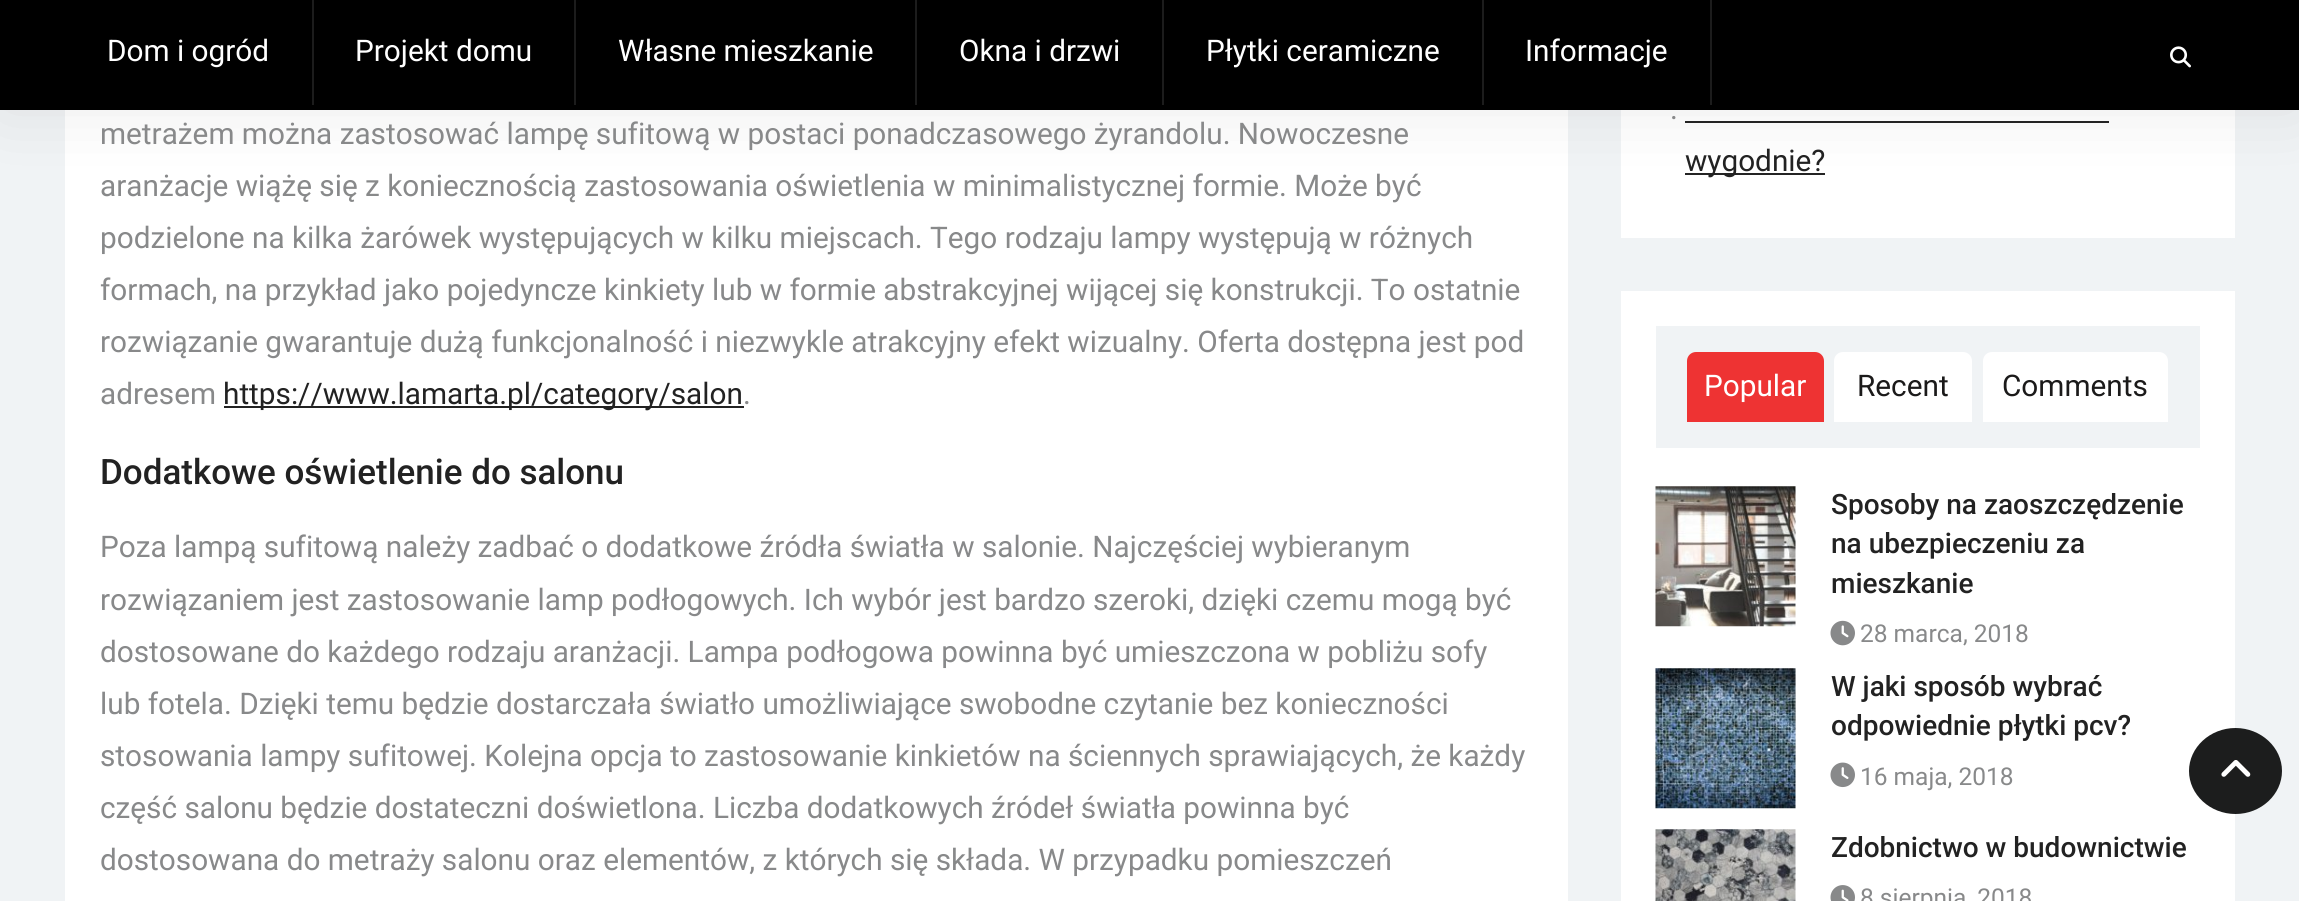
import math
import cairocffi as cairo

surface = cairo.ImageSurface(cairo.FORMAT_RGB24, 2299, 901)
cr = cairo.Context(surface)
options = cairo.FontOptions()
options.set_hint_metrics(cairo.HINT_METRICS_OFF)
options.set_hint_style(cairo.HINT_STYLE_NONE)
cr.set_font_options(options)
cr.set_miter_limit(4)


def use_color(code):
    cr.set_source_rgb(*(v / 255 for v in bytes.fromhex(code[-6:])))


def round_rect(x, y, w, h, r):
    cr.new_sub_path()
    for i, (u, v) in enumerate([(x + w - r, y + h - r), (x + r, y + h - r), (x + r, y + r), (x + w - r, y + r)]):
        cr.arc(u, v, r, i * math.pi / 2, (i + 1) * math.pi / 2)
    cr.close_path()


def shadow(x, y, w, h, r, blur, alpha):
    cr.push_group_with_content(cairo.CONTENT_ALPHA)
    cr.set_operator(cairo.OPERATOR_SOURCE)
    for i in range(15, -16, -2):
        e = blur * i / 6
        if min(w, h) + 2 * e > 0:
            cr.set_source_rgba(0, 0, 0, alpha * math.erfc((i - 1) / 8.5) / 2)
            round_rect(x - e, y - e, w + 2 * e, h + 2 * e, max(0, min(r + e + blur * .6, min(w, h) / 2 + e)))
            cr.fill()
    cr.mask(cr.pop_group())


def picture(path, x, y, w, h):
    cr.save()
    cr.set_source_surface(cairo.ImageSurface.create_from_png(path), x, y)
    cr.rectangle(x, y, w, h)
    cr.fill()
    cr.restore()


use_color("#f0f3f5")
cr.paint()
use_color("#ffffff")
cr.rectangle(65, 110, 1503, 791)
cr.fill()
cr.rectangle(1621, 110, 614, 128)
cr.fill()
use_color("#242424")
cr.rectangle(1685, 121, 424, 2)
cr.fill()
cr.rectangle(1685, 173, 140, 2)
cr.fill()
use_color("#000000")
shadow(0, 0, 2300, 110, 0, 37, 0.08)
use_color("#000000")
cr.rectangle(0, 0, 2299, 110)
cr.fill()
use_color("#1c1c1c")
cr.rectangle(312, 0, 2, 105)
cr.fill()
cr.select_font_face("Roboto")
cr.set_font_size(29.75)
use_color("#ffffff")
cr.move_to(107, 61)
cr.show_text("Dom i ogród")
use_color("#1c1c1c")
cr.rectangle(574, 0, 2, 105)
cr.fill()
use_color("#ffffff")
cr.move_to(355, 61)
cr.show_text("Projekt domu")
use_color("#1c1c1c")
cr.rectangle(915, 0, 2, 105)
cr.fill()
use_color("#ffffff")
cr.move_to(618, 61)
cr.show_text("Własne mieszkanie")
use_color("#1c1c1c")
cr.rectangle(1162, 0, 2, 105)
cr.fill()
use_color("#ffffff")
cr.move_to(959, 61)
cr.show_text("Okna i drzwi")
use_color("#1c1c1c")
cr.rectangle(1482, 0, 2, 105)
cr.fill()
use_color("#ffffff")
cr.move_to(1206, 61)
cr.show_text("Płytki ceramiczne")
use_color("#1c1c1c")
cr.rectangle(1710, 0, 2, 105)
cr.fill()
use_color("#ffffff")
cr.move_to(1525, 61)
cr.show_text("Informacje")
picture("img1.png", 2170, 46, 21, 22)
use_color("#88898a")
cr.move_to(100, 144)
cr.show_text("metrażem można zastosować lampę sufitową w postaci ponadczasowego żyrandolu. Nowoczesne")
cr.move_to(100, 196)
cr.show_text("aranżacje wiążę się z koniecznością zastosowania oświetlenia w minimalistycznej formie. Może być")
cr.move_to(100, 248)
cr.show_text("podzielone na kilka żarówek występujących w kilku miejscach. Tego rodzaju lampy występują w różnych")
cr.move_to(100, 300)
cr.show_text("formach, na przykład jako pojedyncze kinkiety lub w formie abstrakcyjnej wijącej się konstrukcji. To ostatnie")
cr.move_to(100, 352)
cr.show_text("rozwiązanie gwarantuje dużą funkcjonalność i niezwykle atrakcyjny efekt wizualny. Oferta dostępna jest pod")
cr.move_to(100, 404)
cr.show_text("adresem")
use_color("#222222")
cr.rectangle(224, 406, 520, 2)
cr.fill()
cr.move_to(223, 404)
cr.show_text("https://www.lamarta.pl/category/salon")
use_color("#88898a")
cr.move_to(743, 404)
cr.show_text(".")
cr.select_font_face("Roboto Medium")
cr.set_font_size(35)
use_color("#222222")
cr.move_to(100, 484)
cr.show_text("Dodatkowe oświetlenie do salonu")
cr.select_font_face("Roboto")
cr.set_font_size(29.75)
use_color("#88898a")
cr.move_to(100, 557)
cr.show_text("Poza lampą sufitową należy zadbać o dodatkowe źródła światła w salonie. Najczęściej wybieranym")
cr.move_to(100, 610)
cr.show_text("rozwiązaniem jest zastosowanie lamp podłogowych. Ich wybór jest bardzo szeroki, dzięki czemu mogą być")
cr.move_to(100, 662)
cr.show_text("dostosowane do każdego rodzaju aranżacji. Lampa podłogowa powinna być umieszczona w pobliżu sofy")
cr.move_to(100, 714)
cr.show_text("lub fotela. Dzięki temu będzie dostarczała światło umożliwiające swobodne czytanie bez konieczności")
cr.move_to(100, 766)
cr.show_text("stosowania lampy sufitowej. Kolejna opcja to zastosowanie kinkietów na ściennych sprawiających, że każdy")
cr.move_to(100, 818)
cr.show_text("część salonu będzie dostateczni doświetlona. Liczba dodatkowych źródeł światła powinna być")
cr.move_to(100, 870)
cr.show_text("dostosowana do metraży salonu oraz elementów, z których się składa. W przypadku pomieszczeń")
cr.move_to(1670, 119)
cr.show_text(".")
use_color("#222222")
cr.move_to(1685, 171)
cr.show_text("wygodnie?")
use_color("#ffffff")
cr.rectangle(1621, 291, 614, 610)
cr.fill()
use_color("#f0f3f5")
cr.rectangle(1656, 326, 544, 122)
cr.fill()
use_color("#ee3333")
cr.new_path()
cr.move_to(1696, 352)
cr.line_to(1815, 352)
cr.curve_to(1820, 352, 1824, 356, 1824, 361)
cr.line_to(1824, 422)
cr.line_to(1687, 422)
cr.line_to(1687, 361)
cr.curve_to(1687, 356, 1691, 352, 1696, 352)
cr.close_path()
cr.fill()
use_color("#ffffff")
cr.move_to(1704, 396)
cr.show_text("Popular")
cr.new_path()
cr.move_to(1843, 352)
cr.line_to(1963, 352)
cr.curve_to(1968, 352, 1972, 356, 1972, 361)
cr.line_to(1972, 422)
cr.line_to(1834, 422)
cr.line_to(1834, 361)
cr.curve_to(1834, 356, 1838, 352, 1843, 352)
cr.close_path()
cr.fill()
use_color("#1b1a1a")
cr.move_to(1857, 396)
cr.show_text("Recent")
use_color("#ffffff")
cr.new_path()
cr.move_to(1992, 352)
cr.line_to(2159, 352)
cr.curve_to(2164, 352, 2168, 356, 2168, 361)
cr.line_to(2168, 422)
cr.line_to(1983, 422)
cr.line_to(1983, 361)
cr.curve_to(1983, 356, 1987, 352, 1992, 352)
cr.close_path()
cr.fill()
use_color("#1b1a1a")
cr.move_to(2002, 396)
cr.show_text("Comments")
picture("img2.png", 1655, 486, 141, 141)
cr.select_font_face("Roboto Medium")
cr.set_font_size(28)
use_color("#222222")
cr.move_to(1831, 514)
cr.show_text("Sposoby na zaoszczędzenie")
cr.move_to(1831, 553)
cr.show_text("na ubezpieczeniu za")
cr.move_to(1831, 593)
cr.show_text("mieszkanie")
picture("img3.png", 1830, 620, 25, 26)
cr.select_font_face("Roboto")
cr.set_font_size(24.5)
use_color("#88898a")
cr.move_to(1860, 642)
cr.show_text("28 marca, 2018")
picture("img4.png", 1655, 668, 141, 141)
cr.select_font_face("Roboto Medium")
cr.set_font_size(28)
use_color("#222222")
cr.move_to(1831, 696)
cr.show_text("W jaki sposób wybrać")
cr.move_to(1831, 735)
cr.show_text("odpowiednie płytki pcv?")
picture("img5.png", 1830, 762, 25, 26)
cr.select_font_face("Roboto")
cr.set_font_size(24.5)
use_color("#88898a")
cr.move_to(1860, 785)
cr.show_text("16 maja, 2018")
picture("img6.png", 1655, 829, 141, 72)
cr.select_font_face("Roboto Medium")
cr.set_font_size(28)
use_color("#222222")
cr.move_to(1831, 857)
cr.show_text("Zdobnictwo w budownictwie")
picture("img7.png", 1830, 885, 25, 16)
cr.select_font_face("Roboto")
cr.set_font_size(24.5)
use_color("#88898a")
cr.move_to(1860, 906)
cr.show_text("8 sierpnia, 2018")
use_color("#1c1d1d")
cr.new_path()
cr.move_to(2235.5, 728)
cr.curve_to(2261, 728, 2282, 747.5, 2282, 771)
cr.curve_to(2282, 794.5, 2261, 814, 2235.5, 814)
cr.curve_to(2210, 814, 2189, 794.5, 2189, 771)
cr.curve_to(2189, 747.5, 2210, 728, 2235.5, 728)
cr.close_path()
cr.fill()
picture("img8.png", 2221, 760, 30, 17)
surface.write_to_png("result.png")
